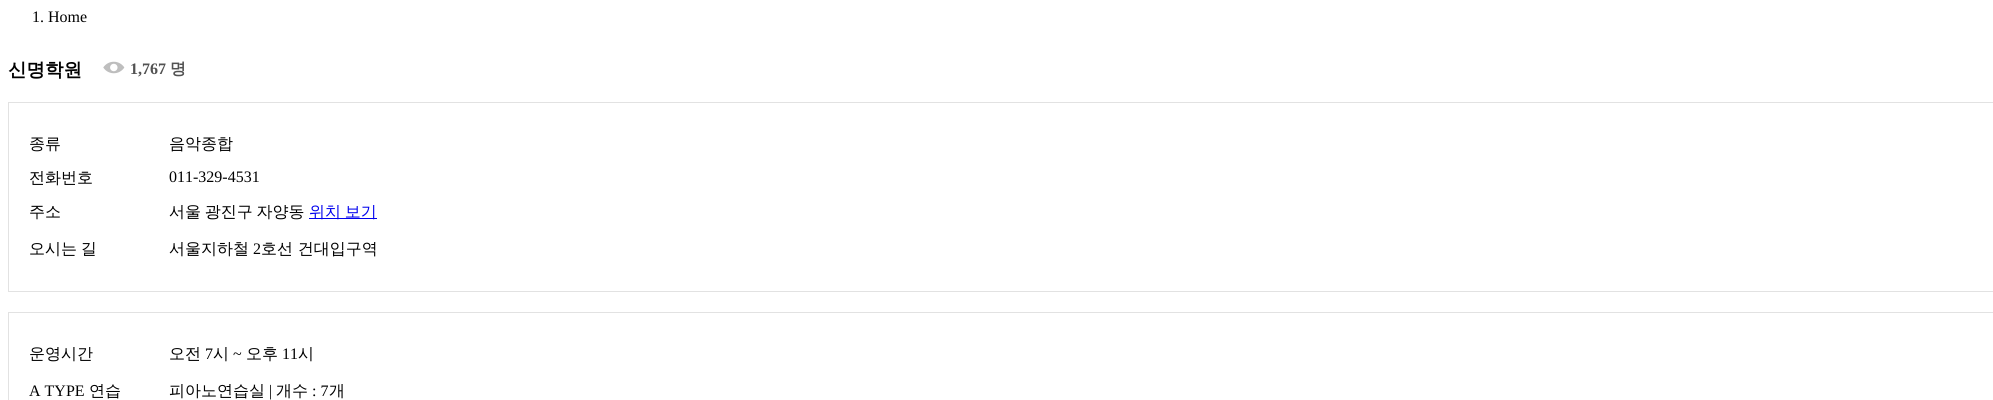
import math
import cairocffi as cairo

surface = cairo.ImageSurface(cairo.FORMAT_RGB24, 1993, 400)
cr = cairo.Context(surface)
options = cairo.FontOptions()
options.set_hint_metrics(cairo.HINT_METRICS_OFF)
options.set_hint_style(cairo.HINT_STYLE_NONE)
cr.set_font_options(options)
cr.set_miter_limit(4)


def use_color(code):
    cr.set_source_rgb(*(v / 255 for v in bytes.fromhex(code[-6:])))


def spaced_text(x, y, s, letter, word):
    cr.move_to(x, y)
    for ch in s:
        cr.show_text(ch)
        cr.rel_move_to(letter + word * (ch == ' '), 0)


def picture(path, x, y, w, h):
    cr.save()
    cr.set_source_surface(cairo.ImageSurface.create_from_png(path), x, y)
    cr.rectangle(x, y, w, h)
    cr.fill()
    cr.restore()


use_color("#ffffff")
cr.paint()
cr.select_font_face("Liberation Serif")
cr.set_font_size(16)
use_color("#000000")
cr.move_to(32, 22)
cr.show_text("1. Home")
cr.select_font_face("WenQuanYi Zen Hei", cairo.FONT_SLANT_NORMAL, cairo.FONT_WEIGHT_BOLD)
cr.set_font_size(18.5)
cr.move_to(8, 76)
cr.show_text("신명학원")
picture("img1.png", 103, 61, 22, 13)
cr.select_font_face("Liberation Serif", cairo.FONT_SLANT_NORMAL, cairo.FONT_WEIGHT_BOLD)
cr.set_font_size(16)
use_color("#525252")
cr.move_to(130, 74)
cr.show_text("1,767")
cr.select_font_face("WenQuanYi Zen Hei", cairo.FONT_SLANT_NORMAL, cairo.FONT_WEIGHT_BOLD)
cr.move_to(170, 74)
cr.show_text("명")
cr.rectangle(8.5, 102.5, 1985, 189)
use_color("#e2e2e2")
cr.set_line_width(1)
cr.stroke()
cr.select_font_face("WenQuanYi Zen Hei Medium")
use_color("#000000")
cr.move_to(29, 149)
cr.show_text("종류")
cr.move_to(169, 149)
cr.show_text("음악종합")
cr.move_to(29, 183)
cr.show_text("전화번호")
cr.select_font_face("Liberation Serif")
cr.move_to(169, 182)
cr.show_text("011-329-4531")
cr.select_font_face("WenQuanYi Zen Hei Medium")
cr.move_to(29, 217)
cr.show_text("주소")
spaced_text(169, 217, "서울 광진구 자양동", 0, -1)
use_color("#0000ee")
cr.rectangle(309, 218, 68, 1)
cr.fill()
spaced_text(309, 217, "위치 보기", 0, -1)
use_color("#000000")
spaced_text(29, 254, "오시는 길", 0, -1)
cr.move_to(169, 254)
cr.show_text("서울지하철")
cr.select_font_face("Liberation Serif")
cr.move_to(253, 254)
cr.show_text("2")
cr.select_font_face("WenQuanYi Zen Hei Medium")
cr.move_to(261, 254)
cr.show_text("호선 건대입구역")
cr.rectangle(8.5, 312.5, 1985, 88)
use_color("#e2e2e2")
cr.stroke()
use_color("#000000")
cr.move_to(29, 359)
cr.show_text("운영시간")
cr.move_to(169, 359)
cr.show_text("오전")
cr.select_font_face("Liberation Serif")
cr.move_to(205, 359)
cr.show_text("7")
cr.select_font_face("WenQuanYi Zen Hei Medium")
cr.move_to(213, 359)
cr.show_text("시")
cr.select_font_face("Liberation Serif")
cr.move_to(233, 359)
cr.show_text("~")
cr.select_font_face("WenQuanYi Zen Hei Medium")
cr.move_to(246, 359)
cr.show_text("오후")
cr.select_font_face("Liberation Serif")
cr.move_to(282, 359)
cr.show_text("11")
cr.select_font_face("WenQuanYi Zen Hei Medium")
cr.move_to(298, 359)
cr.show_text("시")
cr.select_font_face("Liberation Serif")
cr.move_to(29, 396)
cr.show_text("A TYPE")
cr.select_font_face("WenQuanYi Zen Hei Medium")
cr.move_to(89, 396)
cr.show_text("연습")
cr.move_to(169, 396)
cr.show_text("피아노연습실")
cr.select_font_face("Liberation Serif")
cr.move_to(269, 396)
cr.show_text("|")
cr.select_font_face("WenQuanYi Zen Hei Medium")
cr.move_to(276, 396)
cr.show_text("개수")
cr.select_font_face("Liberation Serif")
cr.move_to(312, 396)
cr.show_text(": 7")
cr.select_font_face("WenQuanYi Zen Hei Medium")
cr.move_to(329, 396)
cr.show_text("개")
surface.write_to_png("result.png")
